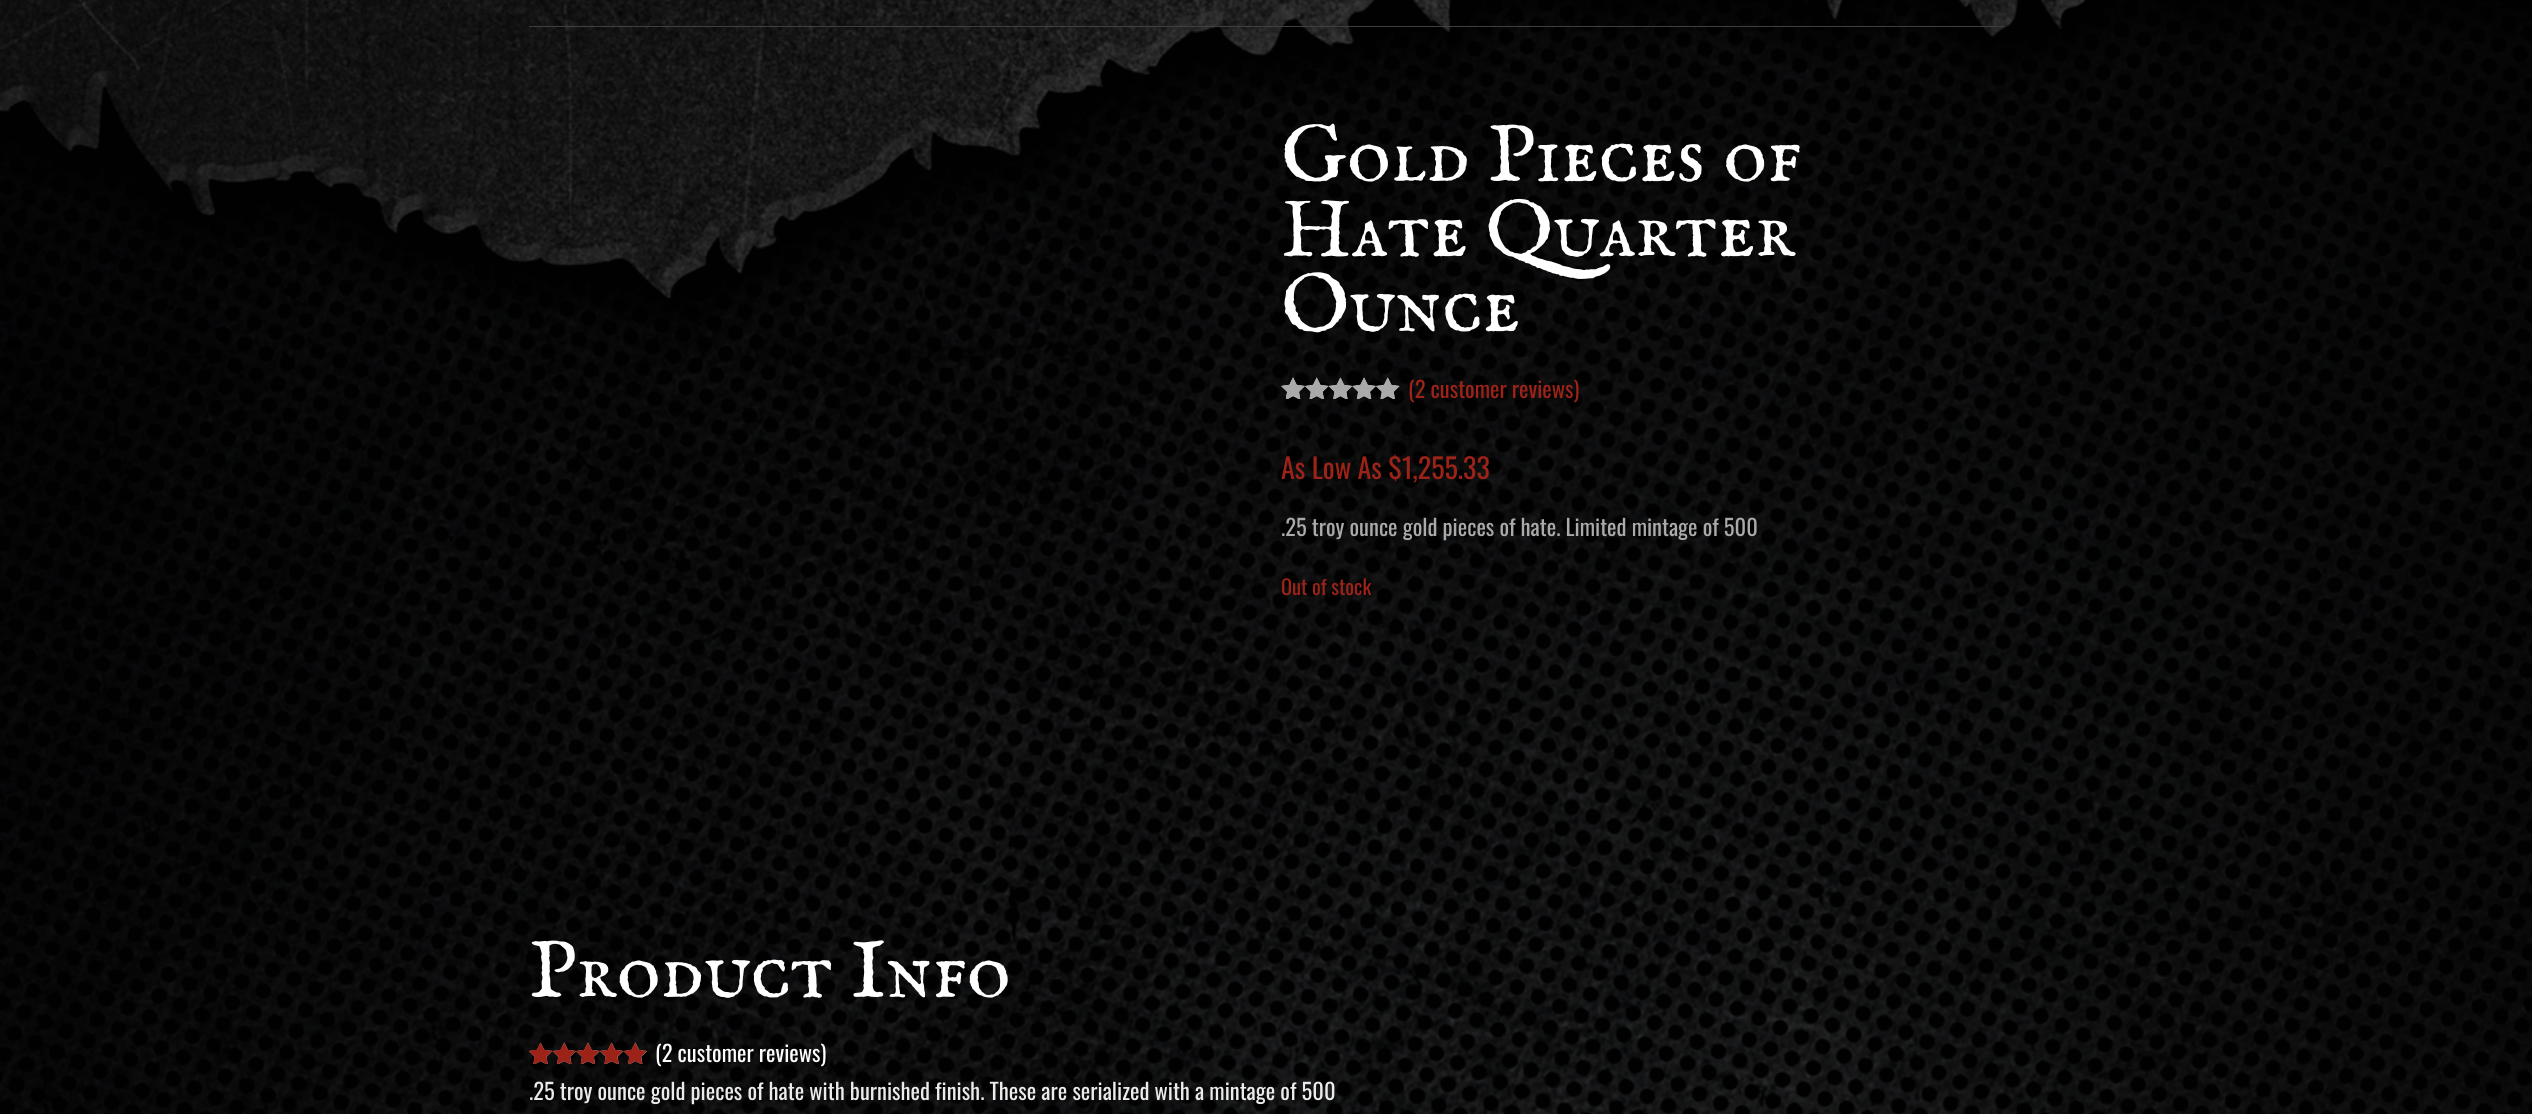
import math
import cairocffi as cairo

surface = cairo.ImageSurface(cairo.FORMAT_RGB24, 2532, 1114)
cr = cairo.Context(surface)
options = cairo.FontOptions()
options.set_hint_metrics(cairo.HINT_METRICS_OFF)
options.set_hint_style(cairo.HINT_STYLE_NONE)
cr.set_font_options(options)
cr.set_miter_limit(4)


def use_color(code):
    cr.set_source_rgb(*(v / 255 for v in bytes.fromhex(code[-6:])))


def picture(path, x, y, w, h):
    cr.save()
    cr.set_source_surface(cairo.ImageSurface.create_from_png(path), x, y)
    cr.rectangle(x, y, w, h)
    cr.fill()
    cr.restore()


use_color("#010101")
cr.paint()
picture("img1.png", 0, 0, 2532, 1114)
use_color("#3f3f3f")
cr.rectangle(529, 26, 1475, 1)
cr.fill()
cr.select_font_face("IM FELL English SC")
cr.set_font_size(82.5)
use_color("#ffffff")
cr.move_to(1281, 181)
cr.show_text("Gold Pieces of")
cr.move_to(1281, 256)
cr.show_text("Hate Quarter")
cr.move_to(1281, 331)
cr.show_text("Ounce")
picture("img2.png", 1281, 377, 119, 22)
picture("img3.png", 1281, 377, 119, 22)
picture("img4.png", 1281, 377, 12, 22)
cr.select_font_face("Oswald")
cr.set_font_size(22.5)
use_color("#9d2318")
cr.move_to(1408, 398)
cr.show_text("(2 customer reviews)")
cr.set_font_size(28)
cr.move_to(1281, 479)
cr.show_text("As Low As $1,255.33")
cr.set_font_size(22.5)
use_color("#aaaaaa")
cr.move_to(1281, 536)
cr.show_text(".25 troy ounce gold pieces of hate. Limited mintage of 500")
cr.set_font_size(20.5)
use_color("#9d2318")
cr.move_to(1281, 595)
cr.show_text("Out of stock")
cr.select_font_face("IM FELL English SC")
cr.set_font_size(82.5)
use_color("#ffffff")
cr.move_to(529, 997)
cr.show_text("Product Info")
picture("img5.png", 529, 1042, 118, 22)
picture("img6.png", 529, 1042, 118, 22)
picture("img7.png", 529, 1043, 11, 21)
cr.select_font_face("Oswald")
cr.set_font_size(22.5)
cr.move_to(655, 1062)
cr.show_text("(2 customer reviews)")
use_color("#ebebeb")
cr.move_to(529, 1100)
cr.show_text(".25 troy ounce gold pieces of hate with burnished finish. These are serialized with a mintage of 500")
surface.write_to_png("result.png")
